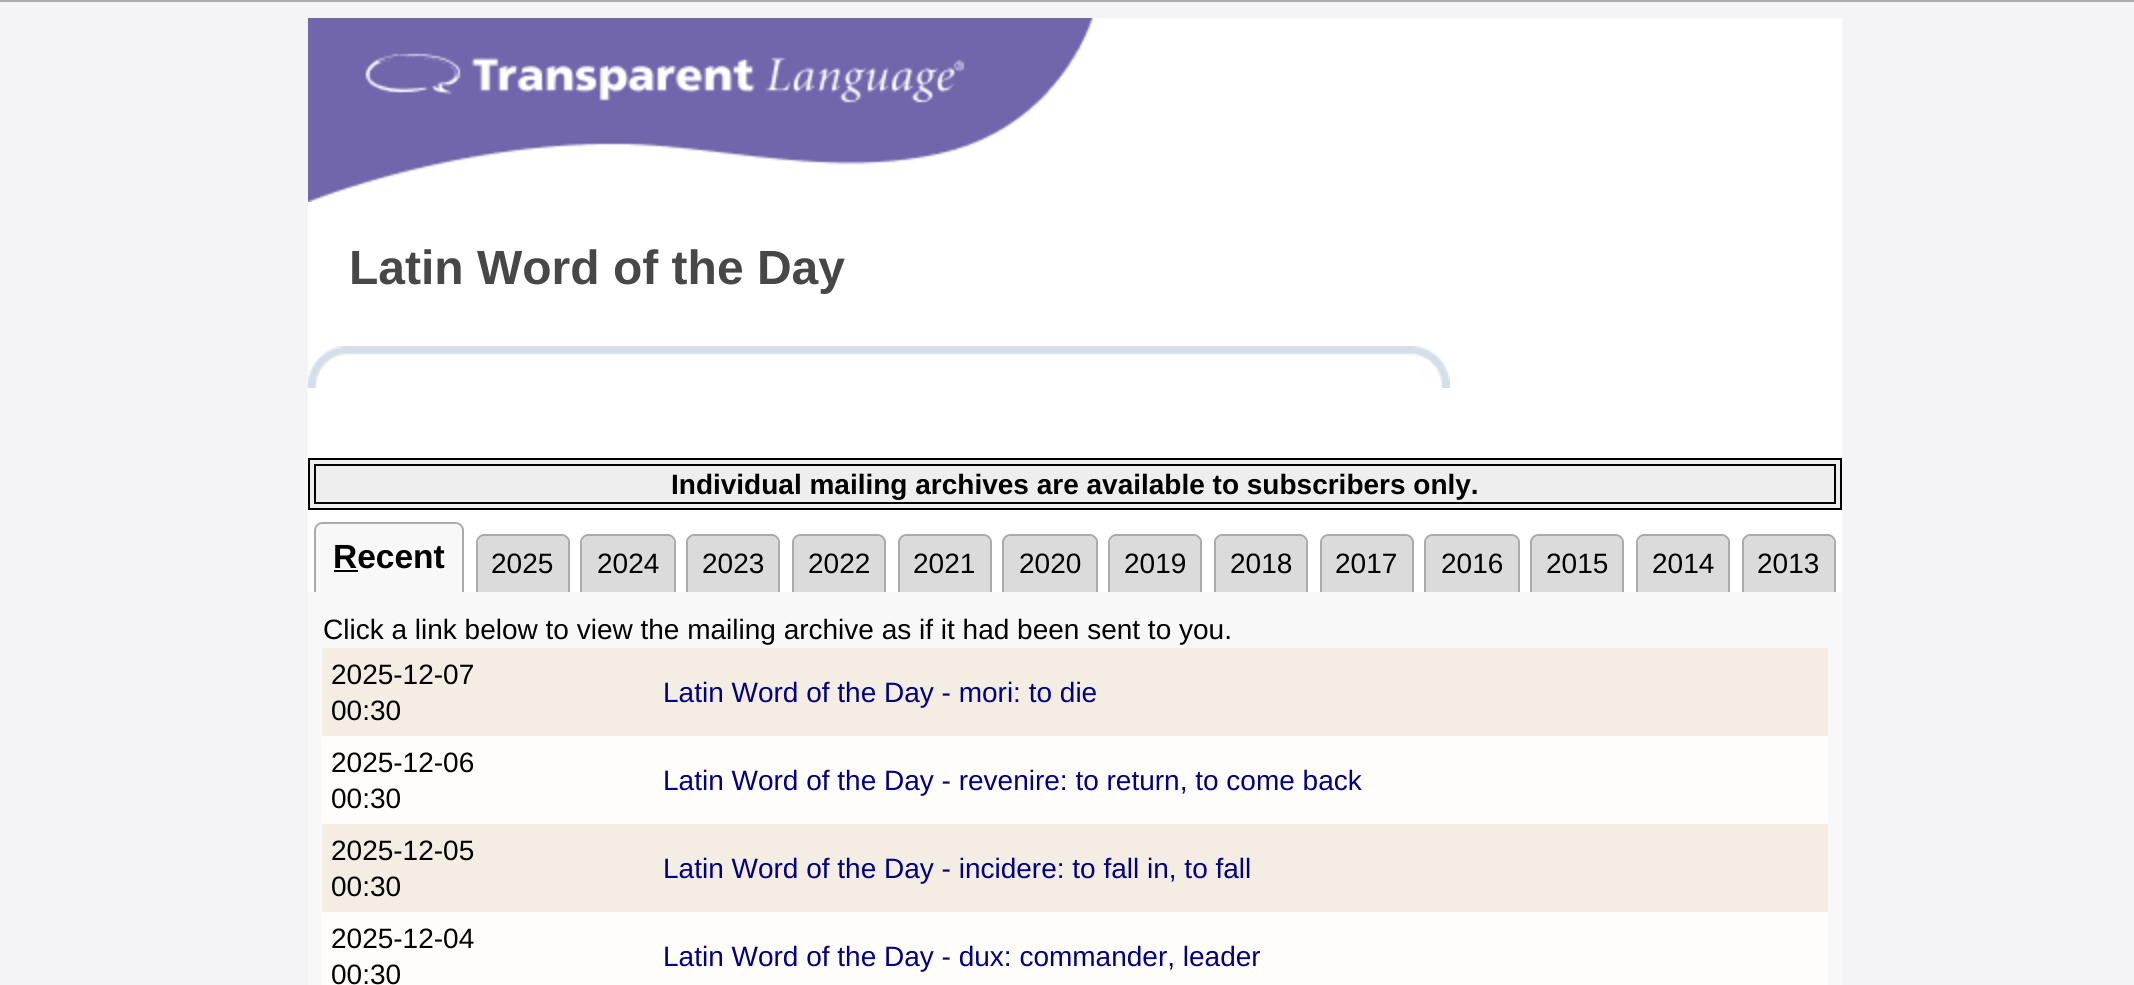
import math
import cairocffi as cairo

surface = cairo.ImageSurface(cairo.FORMAT_RGB24, 2134, 985)
cr = cairo.Context(surface)
options = cairo.FontOptions()
options.set_hint_metrics(cairo.HINT_METRICS_OFF)
options.set_hint_style(cairo.HINT_STYLE_NONE)
cr.set_font_options(options)
cr.set_miter_limit(4)


def use_color(code):
    cr.set_source_rgb(*(v / 255 for v in bytes.fromhex(code[-6:])))


def picture(path, x, y, w, h):
    cr.save()
    cr.set_source_surface(cairo.ImageSurface.create_from_png(path), x, y)
    cr.rectangle(x, y, w, h)
    cr.fill()
    cr.restore()


use_color("#f4f3f5")
cr.paint()
use_color("#aaaaaa")
cr.rectangle(0, 0, 2134, 2)
cr.fill()
use_color("#ffffff")
cr.rectangle(308, 18, 1534, 574)
cr.fill()
picture("img1.png", 308, 18, 786, 184)
cr.select_font_face("Liberation Sans", cairo.FONT_SLANT_NORMAL, cairo.FONT_WEIGHT_BOLD)
cr.set_font_size(48)
use_color("#474747")
cr.move_to(349, 284)
cr.show_text("Latin Word of the Day")
picture("img2.png", 308, 346, 1142, 42)
use_color("#eeeeee")
cr.rectangle(309, 459, 1532, 50)
cr.fill_preserve()
use_color("#000000")
cr.stroke()
cr.rectangle(315, 465, 1520, 38)
cr.stroke()
cr.set_font_size(28)
cr.move_to(671, 494)
cr.show_text("Individual mailing archives are available to subscribers only.")
use_color("#f8f8f8")
cr.new_path()
cr.move_to(322, 524)
cr.line_to(456, 524)
cr.curve_to(459.5, 524, 462, 526.5, 462, 530)
cr.line_to(462, 592)
cr.line_to(316, 592)
cr.line_to(316, 530)
cr.curve_to(316, 526.5, 318.5, 524, 322, 524)
cr.close_path()
cr.fill()
use_color("#aaaaaa")
cr.set_fill_rule(cairo.FILL_RULE_EVEN_ODD)
cr.new_path()
cr.move_to(322, 522)
cr.line_to(456, 522)
cr.curve_to(460, 522, 464, 526, 464, 530)
cr.line_to(464, 592)
cr.line_to(314, 592)
cr.line_to(314, 530)
cr.curve_to(314, 526, 318, 522, 322, 522)
cr.close_path()
cr.move_to(322, 524)
cr.line_to(456, 524)
cr.curve_to(459, 524, 462, 527, 462, 530)
cr.line_to(462, 592)
cr.line_to(316, 592)
cr.line_to(316, 530)
cr.curve_to(316, 527, 319, 524, 322, 524)
cr.close_path()
cr.fill()
cr.set_font_size(33.5)
use_color("#000000")
cr.move_to(333, 568)
cr.show_text("Recent")
cr.rectangle(334, 570, 24, 2)
cr.fill()
use_color("#dbdbdb")
cr.new_path()
cr.move_to(484, 536)
cr.line_to(562, 536)
cr.curve_to(565.5, 536, 568, 538.5, 568, 542)
cr.line_to(568, 592)
cr.line_to(478, 592)
cr.line_to(478, 542)
cr.curve_to(478, 538.5, 480.5, 536, 484, 536)
cr.close_path()
cr.fill()
use_color("#aaaaaa")
cr.new_path()
cr.move_to(484, 534)
cr.line_to(562, 534)
cr.curve_to(566, 534, 570, 538, 570, 542)
cr.line_to(570, 592)
cr.line_to(476, 592)
cr.line_to(476, 542)
cr.curve_to(476, 538, 480, 534, 484, 534)
cr.close_path()
cr.move_to(484, 536)
cr.line_to(562, 536)
cr.curve_to(565, 536, 568, 539, 568, 542)
cr.line_to(568, 592)
cr.line_to(478, 592)
cr.line_to(478, 542)
cr.curve_to(478, 539, 481, 536, 484, 536)
cr.close_path()
cr.fill()
cr.select_font_face("Liberation Sans")
cr.set_font_size(28)
use_color("#000000")
cr.move_to(491, 573)
cr.show_text("2025")
use_color("#dbdbdb")
cr.new_path()
cr.move_to(588, 536)
cr.line_to(668, 536)
cr.curve_to(671.5, 536, 674, 538.5, 674, 542)
cr.line_to(674, 592)
cr.line_to(582, 592)
cr.line_to(582, 542)
cr.curve_to(582, 538.5, 584.5, 536, 588, 536)
cr.close_path()
cr.fill()
use_color("#aaaaaa")
cr.new_path()
cr.move_to(588, 534)
cr.line_to(668, 534)
cr.curve_to(672, 534, 676, 538, 676, 542)
cr.line_to(676, 592)
cr.line_to(580, 592)
cr.line_to(580, 542)
cr.curve_to(580, 538, 584, 534, 588, 534)
cr.close_path()
cr.move_to(588, 536)
cr.line_to(668, 536)
cr.curve_to(671, 536, 674, 539, 674, 542)
cr.line_to(674, 592)
cr.line_to(582, 592)
cr.line_to(582, 542)
cr.curve_to(582, 539, 585, 536, 588, 536)
cr.close_path()
cr.fill()
use_color("#000000")
cr.move_to(597, 573)
cr.show_text("2024")
use_color("#dbdbdb")
cr.new_path()
cr.move_to(694, 536)
cr.line_to(772, 536)
cr.curve_to(775.5, 536, 778, 538.5, 778, 542)
cr.line_to(778, 592)
cr.line_to(688, 592)
cr.line_to(688, 542)
cr.curve_to(688, 538.5, 690.5, 536, 694, 536)
cr.close_path()
cr.fill()
use_color("#aaaaaa")
cr.new_path()
cr.move_to(694, 534)
cr.line_to(772, 534)
cr.curve_to(776, 534, 780, 538, 780, 542)
cr.line_to(780, 592)
cr.line_to(686, 592)
cr.line_to(686, 542)
cr.curve_to(686, 538, 690, 534, 694, 534)
cr.close_path()
cr.move_to(694, 536)
cr.line_to(772, 536)
cr.curve_to(775, 536, 778, 539, 778, 542)
cr.line_to(778, 592)
cr.line_to(688, 592)
cr.line_to(688, 542)
cr.curve_to(688, 539, 691, 536, 694, 536)
cr.close_path()
cr.fill()
use_color("#000000")
cr.move_to(702, 573)
cr.show_text("2023")
use_color("#dbdbdb")
cr.new_path()
cr.move_to(800, 536)
cr.line_to(878, 536)
cr.curve_to(881.5, 536, 884, 538.5, 884, 542)
cr.line_to(884, 592)
cr.line_to(794, 592)
cr.line_to(794, 542)
cr.curve_to(794, 538.5, 796.5, 536, 800, 536)
cr.close_path()
cr.fill()
use_color("#aaaaaa")
cr.new_path()
cr.move_to(800, 534)
cr.line_to(878, 534)
cr.curve_to(882, 534, 886, 538, 886, 542)
cr.line_to(886, 592)
cr.line_to(792, 592)
cr.line_to(792, 542)
cr.curve_to(792, 538, 796, 534, 800, 534)
cr.close_path()
cr.move_to(800, 536)
cr.line_to(878, 536)
cr.curve_to(881, 536, 884, 539, 884, 542)
cr.line_to(884, 592)
cr.line_to(794, 592)
cr.line_to(794, 542)
cr.curve_to(794, 539, 797, 536, 800, 536)
cr.close_path()
cr.fill()
use_color("#000000")
cr.move_to(808, 573)
cr.show_text("2022")
use_color("#dbdbdb")
cr.new_path()
cr.move_to(906, 536)
cr.line_to(984, 536)
cr.curve_to(987.5, 536, 990, 538.5, 990, 542)
cr.line_to(990, 592)
cr.line_to(900, 592)
cr.line_to(900, 542)
cr.curve_to(900, 538.5, 902.5, 536, 906, 536)
cr.close_path()
cr.fill()
use_color("#aaaaaa")
cr.new_path()
cr.move_to(906, 534)
cr.line_to(984, 534)
cr.curve_to(988, 534, 992, 538, 992, 542)
cr.line_to(992, 592)
cr.line_to(898, 592)
cr.line_to(898, 542)
cr.curve_to(898, 538, 902, 534, 906, 534)
cr.close_path()
cr.move_to(906, 536)
cr.line_to(984, 536)
cr.curve_to(987, 536, 990, 539, 990, 542)
cr.line_to(990, 592)
cr.line_to(900, 592)
cr.line_to(900, 542)
cr.curve_to(900, 539, 903, 536, 906, 536)
cr.close_path()
cr.fill()
use_color("#000000")
cr.move_to(913, 573)
cr.show_text("2021")
use_color("#dbdbdb")
cr.new_path()
cr.move_to(1010, 536)
cr.line_to(1090, 536)
cr.curve_to(1093.5, 536, 1096, 538.5, 1096, 542)
cr.line_to(1096, 592)
cr.line_to(1004, 592)
cr.line_to(1004, 542)
cr.curve_to(1004, 538.5, 1006.5, 536, 1010, 536)
cr.close_path()
cr.fill()
use_color("#aaaaaa")
cr.new_path()
cr.move_to(1010, 534)
cr.line_to(1090, 534)
cr.curve_to(1094, 534, 1098, 538, 1098, 542)
cr.line_to(1098, 592)
cr.line_to(1002, 592)
cr.line_to(1002, 542)
cr.curve_to(1002, 538, 1006, 534, 1010, 534)
cr.close_path()
cr.move_to(1010, 536)
cr.line_to(1090, 536)
cr.curve_to(1093, 536, 1096, 539, 1096, 542)
cr.line_to(1096, 592)
cr.line_to(1004, 592)
cr.line_to(1004, 542)
cr.curve_to(1004, 539, 1007, 536, 1010, 536)
cr.close_path()
cr.fill()
use_color("#000000")
cr.move_to(1019, 573)
cr.show_text("2020")
use_color("#dbdbdb")
cr.new_path()
cr.move_to(1116, 536)
cr.line_to(1194, 536)
cr.curve_to(1197.5, 536, 1200, 538.5, 1200, 542)
cr.line_to(1200, 592)
cr.line_to(1110, 592)
cr.line_to(1110, 542)
cr.curve_to(1110, 538.5, 1112.5, 536, 1116, 536)
cr.close_path()
cr.fill()
use_color("#aaaaaa")
cr.new_path()
cr.move_to(1116, 534)
cr.line_to(1194, 534)
cr.curve_to(1198, 534, 1202, 538, 1202, 542)
cr.line_to(1202, 592)
cr.line_to(1108, 592)
cr.line_to(1108, 542)
cr.curve_to(1108, 538, 1112, 534, 1116, 534)
cr.close_path()
cr.move_to(1116, 536)
cr.line_to(1194, 536)
cr.curve_to(1197, 536, 1200, 539, 1200, 542)
cr.line_to(1200, 592)
cr.line_to(1110, 592)
cr.line_to(1110, 542)
cr.curve_to(1110, 539, 1113, 536, 1116, 536)
cr.close_path()
cr.fill()
use_color("#000000")
cr.move_to(1124, 573)
cr.show_text("2019")
use_color("#dbdbdb")
cr.new_path()
cr.move_to(1222, 536)
cr.line_to(1300, 536)
cr.curve_to(1303.5, 536, 1306, 538.5, 1306, 542)
cr.line_to(1306, 592)
cr.line_to(1216, 592)
cr.line_to(1216, 542)
cr.curve_to(1216, 538.5, 1218.5, 536, 1222, 536)
cr.close_path()
cr.fill()
use_color("#aaaaaa")
cr.new_path()
cr.move_to(1222, 534)
cr.line_to(1300, 534)
cr.curve_to(1304, 534, 1308, 538, 1308, 542)
cr.line_to(1308, 592)
cr.line_to(1214, 592)
cr.line_to(1214, 542)
cr.curve_to(1214, 538, 1218, 534, 1222, 534)
cr.close_path()
cr.move_to(1222, 536)
cr.line_to(1300, 536)
cr.curve_to(1303, 536, 1306, 539, 1306, 542)
cr.line_to(1306, 592)
cr.line_to(1216, 592)
cr.line_to(1216, 542)
cr.curve_to(1216, 539, 1219, 536, 1222, 536)
cr.close_path()
cr.fill()
use_color("#000000")
cr.move_to(1230, 573)
cr.show_text("2018")
use_color("#dbdbdb")
cr.new_path()
cr.move_to(1328, 536)
cr.line_to(1406, 536)
cr.curve_to(1409.5, 536, 1412, 538.5, 1412, 542)
cr.line_to(1412, 592)
cr.line_to(1322, 592)
cr.line_to(1322, 542)
cr.curve_to(1322, 538.5, 1324.5, 536, 1328, 536)
cr.close_path()
cr.fill()
use_color("#aaaaaa")
cr.new_path()
cr.move_to(1328, 534)
cr.line_to(1406, 534)
cr.curve_to(1410, 534, 1414, 538, 1414, 542)
cr.line_to(1414, 592)
cr.line_to(1320, 592)
cr.line_to(1320, 542)
cr.curve_to(1320, 538, 1324, 534, 1328, 534)
cr.close_path()
cr.move_to(1328, 536)
cr.line_to(1406, 536)
cr.curve_to(1409, 536, 1412, 539, 1412, 542)
cr.line_to(1412, 592)
cr.line_to(1322, 592)
cr.line_to(1322, 542)
cr.curve_to(1322, 539, 1325, 536, 1328, 536)
cr.close_path()
cr.fill()
use_color("#000000")
cr.move_to(1335, 573)
cr.show_text("2017")
use_color("#dbdbdb")
cr.new_path()
cr.move_to(1432, 536)
cr.line_to(1512, 536)
cr.curve_to(1515.5, 536, 1518, 538.5, 1518, 542)
cr.line_to(1518, 592)
cr.line_to(1426, 592)
cr.line_to(1426, 542)
cr.curve_to(1426, 538.5, 1428.5, 536, 1432, 536)
cr.close_path()
cr.fill()
use_color("#aaaaaa")
cr.new_path()
cr.move_to(1432, 534)
cr.line_to(1512, 534)
cr.curve_to(1516, 534, 1520, 538, 1520, 542)
cr.line_to(1520, 592)
cr.line_to(1424, 592)
cr.line_to(1424, 542)
cr.curve_to(1424, 538, 1428, 534, 1432, 534)
cr.close_path()
cr.move_to(1432, 536)
cr.line_to(1512, 536)
cr.curve_to(1515, 536, 1518, 539, 1518, 542)
cr.line_to(1518, 592)
cr.line_to(1426, 592)
cr.line_to(1426, 542)
cr.curve_to(1426, 539, 1429, 536, 1432, 536)
cr.close_path()
cr.fill()
use_color("#000000")
cr.move_to(1441, 573)
cr.show_text("2016")
use_color("#dbdbdb")
cr.new_path()
cr.move_to(1538, 536)
cr.line_to(1616, 536)
cr.curve_to(1619.5, 536, 1622, 538.5, 1622, 542)
cr.line_to(1622, 592)
cr.line_to(1532, 592)
cr.line_to(1532, 542)
cr.curve_to(1532, 538.5, 1534.5, 536, 1538, 536)
cr.close_path()
cr.fill()
use_color("#aaaaaa")
cr.new_path()
cr.move_to(1538, 534)
cr.line_to(1616, 534)
cr.curve_to(1620, 534, 1624, 538, 1624, 542)
cr.line_to(1624, 592)
cr.line_to(1530, 592)
cr.line_to(1530, 542)
cr.curve_to(1530, 538, 1534, 534, 1538, 534)
cr.close_path()
cr.move_to(1538, 536)
cr.line_to(1616, 536)
cr.curve_to(1619, 536, 1622, 539, 1622, 542)
cr.line_to(1622, 592)
cr.line_to(1532, 592)
cr.line_to(1532, 542)
cr.curve_to(1532, 539, 1535, 536, 1538, 536)
cr.close_path()
cr.fill()
use_color("#000000")
cr.move_to(1546, 573)
cr.show_text("2015")
use_color("#dbdbdb")
cr.new_path()
cr.move_to(1644, 536)
cr.line_to(1722, 536)
cr.curve_to(1725.5, 536, 1728, 538.5, 1728, 542)
cr.line_to(1728, 592)
cr.line_to(1638, 592)
cr.line_to(1638, 542)
cr.curve_to(1638, 538.5, 1640.5, 536, 1644, 536)
cr.close_path()
cr.fill()
use_color("#aaaaaa")
cr.new_path()
cr.move_to(1644, 534)
cr.line_to(1722, 534)
cr.curve_to(1726, 534, 1730, 538, 1730, 542)
cr.line_to(1730, 592)
cr.line_to(1636, 592)
cr.line_to(1636, 542)
cr.curve_to(1636, 538, 1640, 534, 1644, 534)
cr.close_path()
cr.move_to(1644, 536)
cr.line_to(1722, 536)
cr.curve_to(1725, 536, 1728, 539, 1728, 542)
cr.line_to(1728, 592)
cr.line_to(1638, 592)
cr.line_to(1638, 542)
cr.curve_to(1638, 539, 1641, 536, 1644, 536)
cr.close_path()
cr.fill()
use_color("#000000")
cr.move_to(1652, 573)
cr.show_text("2014")
use_color("#dbdbdb")
cr.new_path()
cr.move_to(1750, 536)
cr.line_to(1828, 536)
cr.curve_to(1831.5, 536, 1834, 538.5, 1834, 542)
cr.line_to(1834, 592)
cr.line_to(1744, 592)
cr.line_to(1744, 542)
cr.curve_to(1744, 538.5, 1746.5, 536, 1750, 536)
cr.close_path()
cr.fill()
use_color("#aaaaaa")
cr.new_path()
cr.move_to(1750, 534)
cr.line_to(1828, 534)
cr.curve_to(1832, 534, 1836, 538, 1836, 542)
cr.line_to(1836, 592)
cr.line_to(1742, 592)
cr.line_to(1742, 542)
cr.curve_to(1742, 538, 1746, 534, 1750, 534)
cr.close_path()
cr.move_to(1750, 536)
cr.line_to(1828, 536)
cr.curve_to(1831, 536, 1834, 539, 1834, 542)
cr.line_to(1834, 592)
cr.line_to(1744, 592)
cr.line_to(1744, 542)
cr.curve_to(1744, 539, 1747, 536, 1750, 536)
cr.close_path()
cr.fill()
use_color("#000000")
cr.move_to(1757, 573)
cr.show_text("2013")
use_color("#f8f8f8")
cr.rectangle(308, 592, 1534, 393)
cr.fill()
use_color("#000000")
cr.move_to(323, 639)
cr.show_text("Click a link below to view the mailing archive as if it had been sent to you.")
use_color("#f3ede4")
cr.rectangle(322, 648, 1506, 88)
cr.fill()
use_color("#000000")
cr.move_to(331, 684)
cr.show_text("2025-12-07")
cr.move_to(331, 720)
cr.show_text("00:30")
use_color("#000080")
cr.move_to(663, 702)
cr.show_text("Latin Word of the Day - mori: to die")
use_color("#fffdfc")
cr.rectangle(322, 736, 1506, 88)
cr.fill()
use_color("#000000")
cr.move_to(331, 772)
cr.show_text("2025-12-06")
cr.move_to(331, 808)
cr.show_text("00:30")
use_color("#000080")
cr.move_to(663, 790)
cr.show_text("Latin Word of the Day - revenire: to return, to come back")
use_color("#f3ede4")
cr.rectangle(322, 824, 1506, 88)
cr.fill()
use_color("#000000")
cr.move_to(331, 860)
cr.show_text("2025-12-05")
cr.move_to(331, 896)
cr.show_text("00:30")
use_color("#000080")
cr.move_to(663, 878)
cr.show_text("Latin Word of the Day - incidere: to fall in, to fall")
use_color("#fffdfc")
cr.rectangle(322, 912, 1506, 73)
cr.fill()
use_color("#000000")
cr.move_to(331, 948)
cr.show_text("2025-12-04")
cr.move_to(331, 984)
cr.show_text("00:30")
use_color("#000080")
cr.move_to(663, 966)
cr.show_text("Latin Word of the Day - dux: commander, leader")
surface.write_to_png("result.png")
